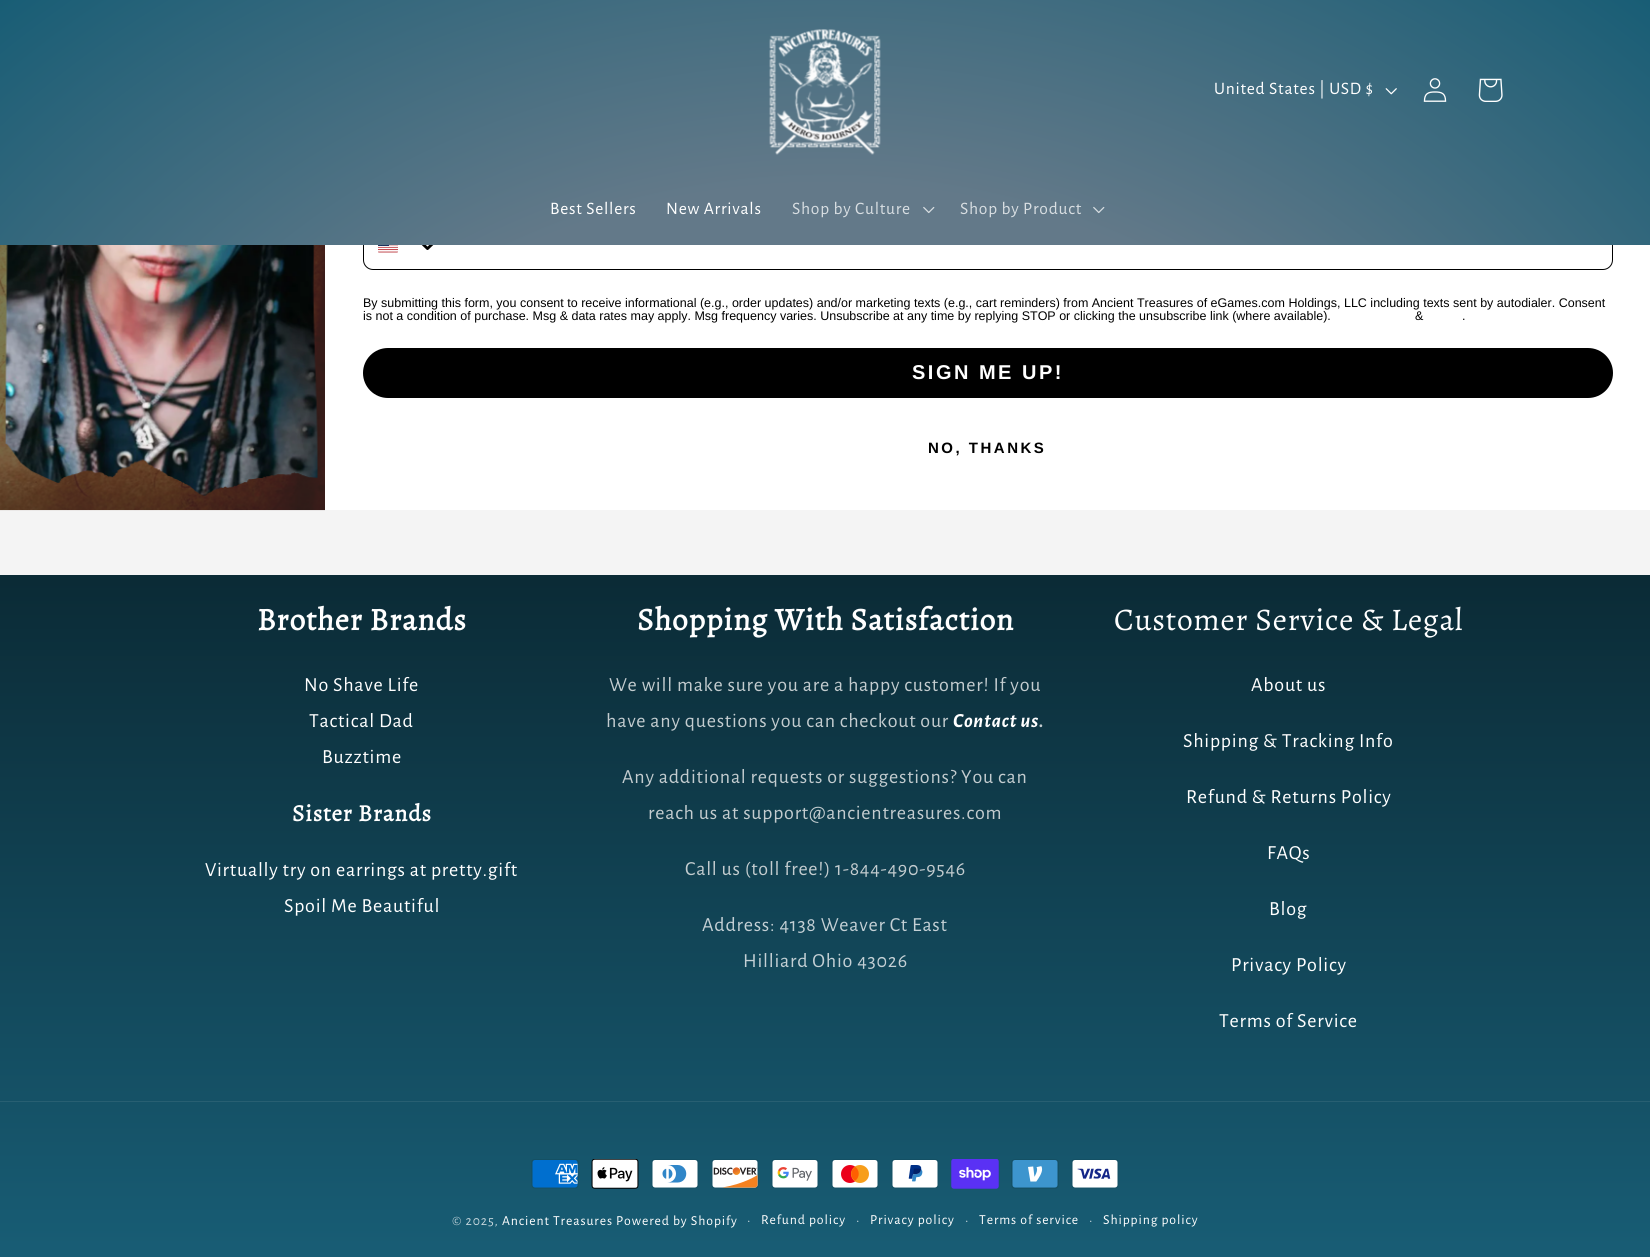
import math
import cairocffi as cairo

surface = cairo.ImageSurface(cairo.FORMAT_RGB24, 1650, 1257)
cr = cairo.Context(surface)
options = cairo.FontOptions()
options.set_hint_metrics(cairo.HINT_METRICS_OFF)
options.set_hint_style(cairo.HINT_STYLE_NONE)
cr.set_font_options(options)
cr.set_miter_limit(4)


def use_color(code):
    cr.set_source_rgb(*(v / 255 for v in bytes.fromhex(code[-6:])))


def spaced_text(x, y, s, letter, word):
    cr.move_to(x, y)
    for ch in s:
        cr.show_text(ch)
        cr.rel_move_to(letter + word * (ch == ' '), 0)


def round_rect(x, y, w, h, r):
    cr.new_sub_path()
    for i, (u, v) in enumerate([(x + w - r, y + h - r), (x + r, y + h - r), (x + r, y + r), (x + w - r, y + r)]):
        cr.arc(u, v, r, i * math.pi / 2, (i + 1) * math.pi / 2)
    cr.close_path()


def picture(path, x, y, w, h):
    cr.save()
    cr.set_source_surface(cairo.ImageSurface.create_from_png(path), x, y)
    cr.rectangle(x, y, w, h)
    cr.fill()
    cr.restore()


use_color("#f4f4f4")
cr.paint()
use_color("#ffffff")
cr.rectangle(325, 245, 1325, 265)
cr.fill()
round_rect(363.5, 220.5, 1249, 49, 9.5)
use_color("#000000")
cr.set_line_width(1)
cr.stroke()
gradient = cairo.RadialGradient(0, 0, 0, 0, 0, 1)
gradient.set_matrix(cairo.Matrix(1 / 1167, 0, 0, 1 / 889, -1 * 825 / 1167, -1 * 629 / 889))
gradient.add_color_stop_rgba(0.5, 0.388, 0.475, 0.537, 1)
gradient.add_color_stop_rgba(1, 0.094, 0.365, 0.459, 1)
cr.set_source(gradient)
cr.rectangle(0, 0, 1650, 245)
cr.fill()
picture("img1.png", 769, 29, 112, 126)
cr.select_font_face("Alegreya Sans")
cr.set_font_size(17.5)
use_color("#ffffff")
spaced_text(1214, 94, "United States | USD $", 0.75, 0)
picture("img2.png", 1385, 88, 12, 7)
picture("img3.png", 1423, 78, 24, 24)
picture("img4.png", 1478, 78, 25, 24)
spaced_text(550, 214, "Best Sellers", 0.75, 0)
spaced_text(666, 214, "New Arrivals", 0.75, 0)
use_color("#d8dee2")
spaced_text(792, 214, "Shop by Culture", 0.75, 0)
picture("img5.png", 923, 206, 12, 8)
spaced_text(960, 214, "Shop by Product", 0.75, 0)
picture("img6.png", 1093, 206, 12, 8)
picture("img7.png", 0, 245, 325, 266)
picture("img8.png", 378, 245, 20, 8)
picture("img9.png", 421, 245, 13, 5)
cr.select_font_face("Liberation Sans")
cr.set_font_size(12.5)
use_color("#000000")
cr.move_to(363, 307)
cr.show_text("By submitting this form, you consent to receive informational (e.g., order updates) and/or marketing texts (e.g., cart reminders) from Ancient Treasures of eGames.com Holdings, LLC including texts sent by autodialer. Consent")
cr.move_to(363, 320)
cr.show_text("is not a condition of purchase. Msg & data rates may apply. Msg frequency varies. Unsubscribe at any time by replying STOP or clicking the unsubscribe link (where available).")
cr.move_to(1415, 320)
cr.show_text("&")
cr.move_to(1462, 320)
cr.show_text(".")
round_rect(363, 348, 1250, 50, 25)
cr.fill()
cr.select_font_face("Liberation Sans", cairo.FONT_SLANT_NORMAL, cairo.FONT_WEIGHT_BOLD)
cr.set_font_size(20)
use_color("#ffffff")
spaced_text(912, 379, "SIGN ME UP!", 2.5, 0)
cr.set_font_size(15)
use_color("#000000")
spaced_text(928, 453, "NO, THANKS", 2.5, 0)
gradient = cairo.LinearGradient(825, 0, 825, 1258)
gradient.add_color_stop_rgba(0, 0, 0, 0, 1)
gradient.add_color_stop_rgba(1, 0.094, 0.365, 0.459, 1)
cr.set_source(gradient)
cr.rectangle(0, 575, 1650, 682)
cr.fill()
cr.select_font_face("Alegreya", cairo.FONT_SLANT_NORMAL, cairo.FONT_WEIGHT_BOLD)
cr.set_font_size(31.5)
use_color("#ffffff")
spaced_text(257, 630, "Brother Brands", 0.8, 0)
cr.select_font_face("Alegreya Sans")
cr.set_font_size(20)
spaced_text(304, 691, "No Shave Life", 0.75, 0)
spaced_text(309, 727, "Tactical Dad", 0.75, 0)
spaced_text(322, 763, "Buzztime", 0.75, 0)
cr.select_font_face("Alegreya", cairo.FONT_SLANT_NORMAL, cairo.FONT_WEIGHT_BOLD)
cr.set_font_size(23.5)
spaced_text(292, 821, "Sister Brands", 0.8, 0)
cr.select_font_face("Alegreya Sans")
cr.set_font_size(20)
spaced_text(205, 876, "Virtually try on earrings at pretty.gift", 0.75, 0)
spaced_text(284, 912, "Spoil Me Beautiful", 0.75, 0)
cr.select_font_face("Alegreya", cairo.FONT_SLANT_NORMAL, cairo.FONT_WEIGHT_BOLD)
cr.set_font_size(31.5)
spaced_text(637, 630, "Shopping With Satisfaction", 0.8, 0)
cr.select_font_face("Alegreya Sans")
cr.set_font_size(20)
use_color("#c3cccf")
spaced_text(609, 691, "We will make sure you are a happy customer! If you", 0.75, 0)
spaced_text(606, 727, "have any questions you can checkout our", 0.75, 0)
cr.select_font_face("Alegreya Sans", cairo.FONT_SLANT_ITALIC, cairo.FONT_WEIGHT_BOLD)
use_color("#ffffff")
spaced_text(953, 727, "Contact us", 0.75, 0)
use_color("#c3cccf")
spaced_text(1039, 727, ".", 0.75, 0)
cr.select_font_face("Alegreya Sans")
spaced_text(622, 783, "Any additional requests or suggestions? You can", 0.75, 0)
spaced_text(648, 819, "reach us at support@ancientreasures.com", 0.75, 0)
spaced_text(685, 875, "Call us (toll free!) 1-844-490-9546", 0.75, 0)
use_color("#c4d0d5")
spaced_text(702, 931, "Address: 4138 Weaver Ct East", 0.75, 0)
spaced_text(743, 967, "Hilliard Ohio 43026", 0.75, 0)
cr.select_font_face("Alegreya")
cr.set_font_size(31.5)
use_color("#ffffff")
spaced_text(1114, 630, "Customer Service & Legal", 0.8, 0)
cr.select_font_face("Alegreya Sans")
cr.set_font_size(20)
spaced_text(1251, 691, "About us", 0.75, 0)
spaced_text(1183, 747, "Shipping & Tracking Info", 0.75, 0)
spaced_text(1186, 803, "Refund & Returns Policy", 0.75, 0)
spaced_text(1267, 859, "FAQs", 0.75, 0)
spaced_text(1269, 915, "Blog", 0.75, 0)
spaced_text(1231, 971, "Privacy Policy", 0.75, 0)
spaced_text(1219, 1027, "Terms of Service", 0.75, 0)
use_color("#285f72")
cr.rectangle(0, 1101, 1650, 1)
cr.fill()
picture("img10.png", 531, 1159, 48, 30)
picture("img11.png", 591, 1159, 48, 30)
picture("img12.png", 651, 1159, 48, 30)
picture("img13.png", 711, 1159, 48, 30)
picture("img14.png", 771, 1159, 48, 30)
picture("img15.png", 831, 1159, 48, 30)
picture("img16.png", 891, 1159, 48, 30)
picture("img17.png", 951, 1159, 48, 30)
picture("img18.png", 1011, 1159, 48, 30)
picture("img19.png", 1071, 1159, 48, 30)
cr.set_font_size(13.75)
use_color("#c5d6dc")
spaced_text(452, 1225, "© 2025,", 0.9, 0)
use_color("#ffffff")
spaced_text(502, 1225, "Ancient Treasures Powered by Shopify", 0.9, 0)
cr.set_font_size(15)
use_color("#c5d6dc")
spaced_text(747, 1225, "·", 0.9, 0)
cr.set_font_size(13.75)
use_color("#ffffff")
spaced_text(761, 1224, "Refund policy", 0.9, 0)
cr.set_font_size(15)
use_color("#c5d6dc")
spaced_text(856, 1225, "·", 0.9, 0)
cr.set_font_size(13.75)
use_color("#ffffff")
spaced_text(870, 1224, "Privacy policy", 0.9, 0)
cr.set_font_size(15)
use_color("#c5d6dc")
spaced_text(965, 1225, "·", 0.9, 0)
cr.set_font_size(13.75)
use_color("#ffffff")
spaced_text(979, 1224, "Terms of service", 0.9, 0)
cr.set_font_size(15)
use_color("#c5d6dc")
spaced_text(1089, 1225, "·", 0.9, 0)
cr.set_font_size(13.75)
use_color("#ffffff")
spaced_text(1103, 1224, "Shipping policy", 0.9, 0)
surface.write_to_png("result.png")
